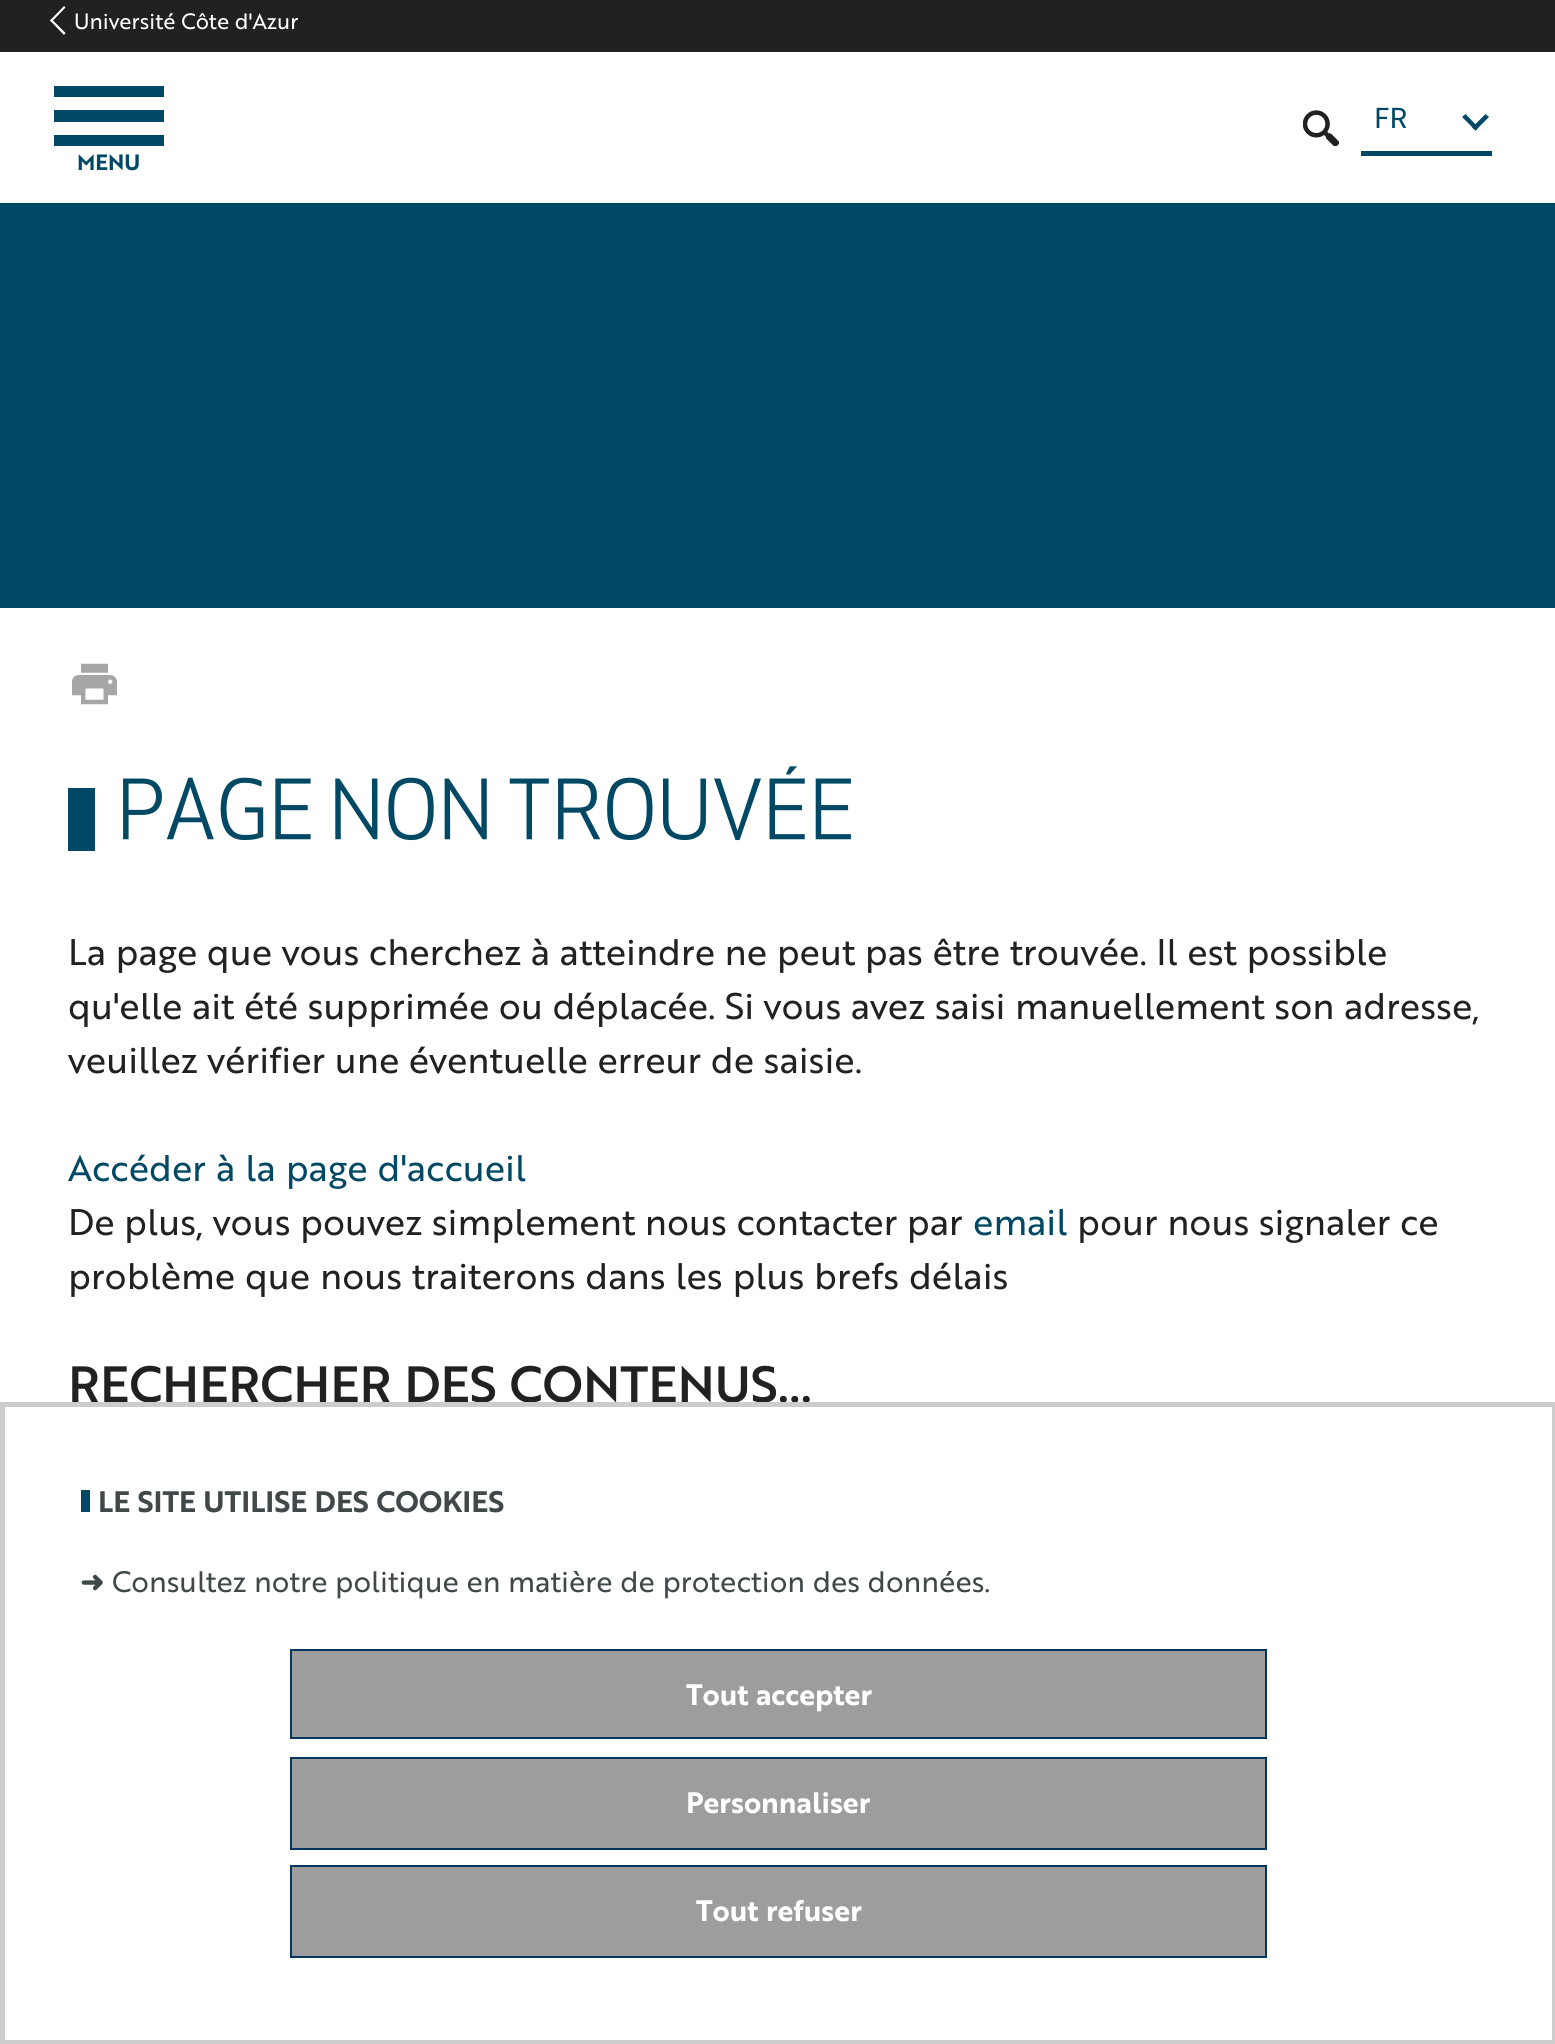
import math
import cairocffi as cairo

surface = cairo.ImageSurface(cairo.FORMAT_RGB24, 1555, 2044)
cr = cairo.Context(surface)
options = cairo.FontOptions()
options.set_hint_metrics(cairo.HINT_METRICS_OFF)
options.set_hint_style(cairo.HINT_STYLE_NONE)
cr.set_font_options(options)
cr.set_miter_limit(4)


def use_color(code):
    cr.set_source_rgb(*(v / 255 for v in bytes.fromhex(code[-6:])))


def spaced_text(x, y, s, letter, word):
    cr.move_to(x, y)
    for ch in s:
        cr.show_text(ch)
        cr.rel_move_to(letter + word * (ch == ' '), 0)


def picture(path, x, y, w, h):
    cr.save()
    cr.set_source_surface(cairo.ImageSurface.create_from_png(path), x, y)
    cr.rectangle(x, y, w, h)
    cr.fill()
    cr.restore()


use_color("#ffffff")
cr.paint()
use_color("#212121")
cr.rectangle(0, 0, 1555, 52)
cr.fill()
use_color("#ffffff")
cr.new_path()
cr.move_to(51.5, 19)
cr.line_to(65.5, 33)
cr.line_to(64, 35)
cr.line_to(50, 20.5)
cr.close_path()
cr.fill()
cr.new_path()
cr.move_to(64, 6)
cr.line_to(65.5, 7.5)
cr.line_to(51.5, 22)
cr.line_to(50, 20.5)
cr.close_path()
cr.fill()
cr.select_font_face("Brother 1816")
cr.set_font_size(21.6)
cr.move_to(74, 29)
cr.show_text("Université Côte d'Azur")
picture("img1.png", 1303, 110, 36, 36)
use_color("#004863")
cr.rectangle(1361, 151, 131, 5)
cr.fill()
cr.set_font_size(28)
cr.move_to(1374, 128)
cr.show_text("FR")
cr.new_path()
cr.move_to(1485.5, 114)
cr.line_to(1489, 117)
cr.line_to(1475.5, 130.5)
cr.line_to(1472, 127.5)
cr.close_path()
cr.fill()
cr.new_path()
cr.move_to(1465.5, 114)
cr.line_to(1478.5, 127.5)
cr.line_to(1475.5, 130.5)
cr.line_to(1462, 117)
cr.close_path()
cr.fill()
cr.rectangle(54, 86, 110, 11)
cr.fill()
cr.rectangle(54, 135, 110, 11)
cr.fill()
cr.rectangle(54, 110, 110, 12)
cr.fill()
cr.select_font_face("Brother 1816", cairo.FONT_SLANT_NORMAL, cairo.FONT_WEIGHT_BOLD)
cr.set_font_size(21.6)
cr.move_to(77, 170)
cr.show_text("MENU")
cr.rectangle(0, 203, 1555, 405)
cr.fill()
picture("img2.png", 72, 663, 45, 42)
cr.rectangle(68, 788, 27, 63)
cr.fill()
picture("img3.png", 123, 766, 728, 75)
cr.select_font_face("Brother 1816")
cr.set_font_size(36)
use_color("#212121")
cr.move_to(68, 965)
cr.show_text("La page que vous cherchez à atteindre ne peut pas être trouvée. Il est possible")
cr.move_to(68, 1019)
cr.show_text("qu'elle ait été supprimée ou déplacée. Si vous avez saisi manuellement son adresse,")
cr.move_to(68, 1073)
cr.show_text("veuillez vérifier une éventuelle erreur de saisie.")
use_color("#004863")
spaced_text(68, 1181, "Accéder à la page d'accueil", 0, 0.5)
use_color("#212121")
cr.move_to(68, 1235)
cr.show_text("De plus, vous pouvez simplement nous contacter par")
use_color("#004863")
cr.move_to(973, 1235)
cr.show_text("email")
use_color("#212121")
cr.move_to(1077, 1235)
cr.show_text("pour nous signaler ce")
spaced_text(68, 1289, "problème que nous traiterons dans les plus brefs délais", 0, 0.25)
cr.select_font_face("Brother 1816 Medium")
cr.set_font_size(49.5)
cr.move_to(68, 1402)
cr.show_text("RECHERCHER DES CONTENUS…")
cr.rectangle(2.5, 1404.5, 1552, 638)
use_color("#cccccc")
cr.set_line_width(5)
cr.stroke()
use_color("#004863")
cr.rectangle(81, 1490, 9, 22)
cr.fill()
cr.select_font_face("Brother 1816", cairo.FONT_SLANT_NORMAL, cairo.FONT_WEIGHT_BOLD)
cr.set_font_size(28.8)
use_color("#404849")
cr.move_to(98, 1512)
cr.show_text("LE SITE UTILISE DES COOKIES")
cr.select_font_face("DejaVu Sans", cairo.FONT_SLANT_NORMAL, cairo.FONT_WEIGHT_BOLD)
cr.move_to(80, 1592)
cr.show_text("➜")
cr.select_font_face("Brother 1816")
cr.move_to(112, 1592)
cr.show_text("Consultez notre politique en matière de protection des données.")
use_color("#9e9d9d")
cr.rectangle(291, 1650, 975, 88)
cr.fill_preserve()
use_color("#053461")
cr.set_line_width(2)
cr.stroke()
cr.select_font_face("Brother 1816", cairo.FONT_SLANT_NORMAL, cairo.FONT_WEIGHT_BOLD)
use_color("#ffffff")
cr.move_to(686, 1705)
cr.show_text("Tout accepter")
use_color("#9e9d9d")
cr.rectangle(291, 1758, 975, 91)
cr.fill_preserve()
use_color("#053461")
cr.stroke()
use_color("#ffffff")
cr.move_to(686, 1813)
cr.show_text("Personnaliser")
use_color("#9e9d9d")
cr.rectangle(291, 1866, 975, 91)
cr.fill_preserve()
use_color("#053461")
cr.stroke()
use_color("#ffffff")
cr.move_to(696, 1921)
cr.show_text("Tout refuser")
surface.write_to_png("result.png")
